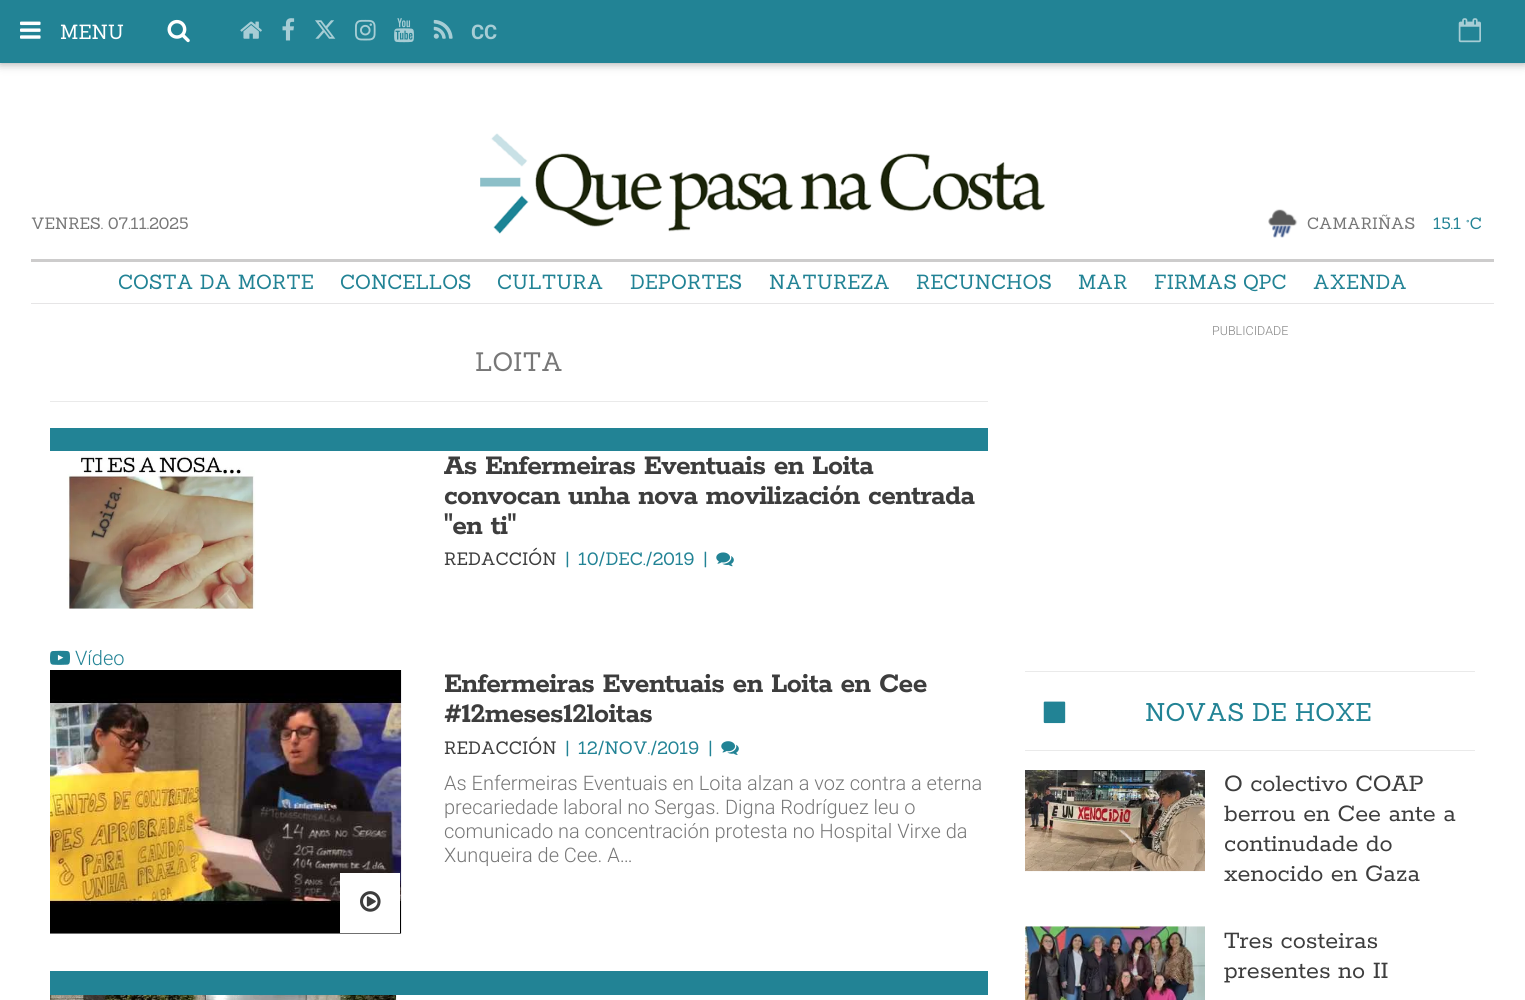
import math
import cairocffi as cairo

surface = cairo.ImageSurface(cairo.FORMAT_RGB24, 1525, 1000)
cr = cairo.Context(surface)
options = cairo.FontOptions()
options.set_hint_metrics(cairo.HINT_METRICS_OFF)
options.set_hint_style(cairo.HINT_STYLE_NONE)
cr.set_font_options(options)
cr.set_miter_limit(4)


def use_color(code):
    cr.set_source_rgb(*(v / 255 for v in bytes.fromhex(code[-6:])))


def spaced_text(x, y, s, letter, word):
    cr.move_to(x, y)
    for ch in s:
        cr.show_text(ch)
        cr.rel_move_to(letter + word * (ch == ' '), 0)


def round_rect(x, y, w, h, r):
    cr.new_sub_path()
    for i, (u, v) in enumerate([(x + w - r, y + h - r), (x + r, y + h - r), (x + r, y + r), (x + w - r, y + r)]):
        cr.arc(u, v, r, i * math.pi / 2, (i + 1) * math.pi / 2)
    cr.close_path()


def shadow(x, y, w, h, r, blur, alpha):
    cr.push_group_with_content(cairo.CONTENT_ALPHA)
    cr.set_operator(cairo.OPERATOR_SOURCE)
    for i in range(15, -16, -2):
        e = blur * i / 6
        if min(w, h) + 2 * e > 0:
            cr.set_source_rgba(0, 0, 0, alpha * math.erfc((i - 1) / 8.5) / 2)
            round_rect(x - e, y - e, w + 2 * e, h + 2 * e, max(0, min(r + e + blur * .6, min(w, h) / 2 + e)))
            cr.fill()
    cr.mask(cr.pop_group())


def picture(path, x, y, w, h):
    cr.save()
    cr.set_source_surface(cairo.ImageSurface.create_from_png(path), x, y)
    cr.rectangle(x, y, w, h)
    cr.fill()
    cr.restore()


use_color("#ffffff")
cr.paint()
use_color("#000000")
shadow(0, 0, 1525, 63, 0, 5, 0.4)
use_color("#228395")
cr.rectangle(0, 0, 1525, 63)
cr.fill()
picture("img1.png", 20, 21, 21, 18)
cr.select_font_face("Sanchez")
cr.set_font_size(20)
use_color("#ffffff")
cr.move_to(60, 39)
cr.show_text("MENU")
picture("img2.png", 167, 19, 23, 24)
picture("img3.png", 240, 21, 22, 18)
picture("img4.png", 282, 18, 13, 23)
picture("img5.png", 315, 20, 21, 19)
picture("img6.png", 355, 19, 21, 22)
picture("img7.png", 394, 18, 20, 25)
picture("img8.png", 433, 19, 20, 20)
cr.select_font_face("Roboto", cairo.FONT_SLANT_NORMAL, cairo.FONT_WEIGHT_BOLD)
use_color("#a7cdd5")
cr.move_to(471, 39)
cr.show_text("CC")
picture("img9.png", 1458, 18, 23, 25)
cr.select_font_face("Sanchez")
cr.set_font_size(16)
use_color("#777777")
cr.move_to(31, 229)
cr.show_text("VENRES. 07.11.2025")
picture("img10.png", 480, 133, 565, 101)
picture("img11.png", 1268, 209, 30, 29)
cr.move_to(1307, 229)
cr.show_text("CAMARIÑAS")
use_color("#228395")
cr.move_to(1433, 229)
cr.show_text("15.1 °C")
use_color("#cdcccc")
cr.rectangle(31, 259, 1463, 3)
cr.fill()
use_color("#e6e5e6")
cr.rectangle(31, 303, 1463, 1)
cr.fill()
cr.set_font_size(20)
use_color("#228395")
cr.move_to(118, 289)
cr.show_text("COSTA DA MORTE")
cr.move_to(340, 289)
cr.show_text("CONCELLOS")
cr.move_to(497, 289)
cr.show_text("CULTURA")
cr.move_to(630, 289)
cr.show_text("DEPORTES")
cr.move_to(769, 289)
cr.show_text("NATUREZA")
cr.move_to(916, 289)
cr.show_text("RECUNCHOS")
cr.move_to(1078, 289)
cr.show_text("MAR")
cr.move_to(1154, 289)
cr.show_text("FIRMAS QPC")
cr.move_to(1313, 289)
cr.show_text("AXENDA")
use_color("#eaeaea")
cr.rectangle(50, 401, 938, 1)
cr.fill()
cr.set_font_size(26)
use_color("#777777")
cr.move_to(475, 371)
cr.show_text("LOITA")
use_color("#228395")
cr.rectangle(50, 428, 938, 23)
cr.fill()
picture("img12.png", 67, 456, 189, 153)
cr.select_font_face("Rokkitt", cairo.FONT_SLANT_NORMAL, cairo.FONT_WEIGHT_BOLD)
cr.set_font_size(30)
use_color("#3d3d3d")
spaced_text(444, 474, "As Enfermeiras Eventuais en Loita", -0.6, 0)
spaced_text(444, 504, "convocan unha nova movilización centrada", -0.6, 0)
spaced_text(444, 534, "\"en ti\"", -0.6, 0)
cr.select_font_face("Sanchez")
cr.set_font_size(17.5)
cr.move_to(444, 565)
cr.show_text("REDACCIÓN")
use_color("#228395")
cr.move_to(566, 565)
cr.show_text("|")
cr.move_to(578, 565)
cr.show_text("10/DEC./2019")
cr.move_to(704, 565)
cr.show_text("|")
picture("img13.png", 716, 552, 18, 15)
picture("img14.png", 50, 650, 20, 15)
cr.select_font_face("Roboto Light")
cr.set_font_size(20)
cr.move_to(75, 665)
cr.show_text("Vídeo")
picture("img15.png", 50, 670, 352, 264)
use_color("#ffffff")
cr.rectangle(340, 873, 60, 60)
cr.fill()
picture("img16.png", 360, 891, 21, 21)
cr.select_font_face("Rokkitt", cairo.FONT_SLANT_NORMAL, cairo.FONT_WEIGHT_BOLD)
cr.set_font_size(30)
use_color("#3d3d3d")
spaced_text(444, 692, "Enfermeiras Eventuais en Loita en Cee", -0.6, 0)
spaced_text(444, 722, "#12meses12loitas", -0.6, 0)
cr.select_font_face("Sanchez")
cr.set_font_size(17.5)
cr.move_to(444, 754)
cr.show_text("REDACCIÓN")
use_color("#228395")
cr.move_to(566, 754)
cr.show_text("|")
cr.move_to(578, 754)
cr.show_text("12/NOV./2019")
cr.move_to(709, 754)
cr.show_text("|")
picture("img17.png", 721, 741, 18, 14)
cr.select_font_face("Roboto Light")
cr.set_font_size(20)
use_color("#777777")
cr.move_to(444, 790)
cr.show_text("As Enfermeiras Eventuais en Loita alzan a voz contra a eterna")
cr.move_to(444, 814)
cr.show_text("precariedade laboral no Sergas. Digna Rodríguez leu o")
cr.move_to(444, 838)
cr.show_text("comunicado na concentración protesta no Hospital Virxe da")
cr.move_to(444, 862)
cr.show_text("Xunqueira de Cee. A…")
use_color("#228395")
cr.rectangle(50, 971, 938, 24)
cr.fill()
picture("img18.png", 50, 995, 347, 5)
cr.set_font_size(12.5)
use_color("#838383")
cr.move_to(1212, 335)
cr.show_text("PUBLICIDADE")
use_color("#eaeaea")
cr.rectangle(1025, 671, 450, 1)
cr.fill()
cr.rectangle(1025, 750, 450, 1)
cr.fill()
picture("img19.png", 1043, 701, 23, 23)
cr.select_font_face("Sanchez")
cr.set_font_size(25)
use_color("#228395")
cr.move_to(1145, 721)
cr.show_text("NOVAS DE HOXE")
picture("img20.png", 1025, 770, 180, 102)
cr.select_font_face("Rokkitt")
cr.set_font_size(26.25)
use_color("#3d3d3d")
cr.move_to(1224, 791)
cr.show_text("O colectivo COAP")
cr.move_to(1224, 821)
cr.show_text("berrou en Cee ante a")
cr.move_to(1224, 851)
cr.show_text("continudade do")
cr.move_to(1224, 881)
cr.show_text("xenocido en Gaza")
picture("img21.png", 1025, 926, 180, 74)
cr.move_to(1224, 948)
cr.show_text("Tres costeiras")
cr.move_to(1224, 978)
cr.show_text("presentes no II")
surface.write_to_png("result.png")
